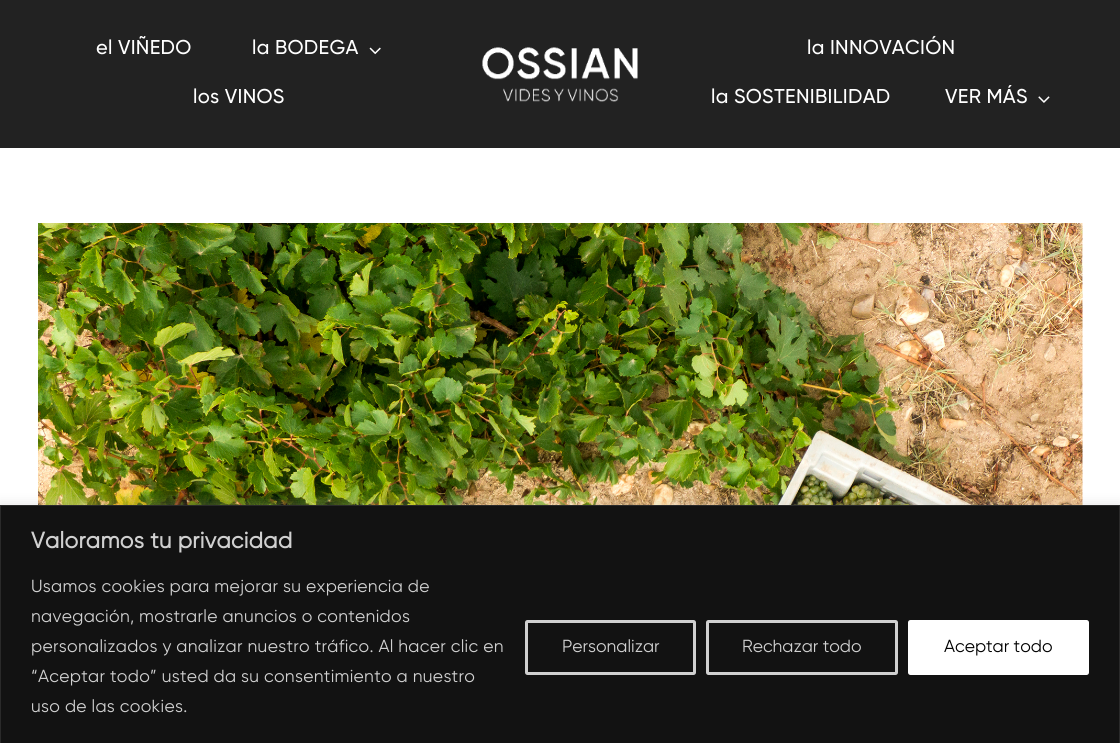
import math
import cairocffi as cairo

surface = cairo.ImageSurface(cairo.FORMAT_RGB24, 1120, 743)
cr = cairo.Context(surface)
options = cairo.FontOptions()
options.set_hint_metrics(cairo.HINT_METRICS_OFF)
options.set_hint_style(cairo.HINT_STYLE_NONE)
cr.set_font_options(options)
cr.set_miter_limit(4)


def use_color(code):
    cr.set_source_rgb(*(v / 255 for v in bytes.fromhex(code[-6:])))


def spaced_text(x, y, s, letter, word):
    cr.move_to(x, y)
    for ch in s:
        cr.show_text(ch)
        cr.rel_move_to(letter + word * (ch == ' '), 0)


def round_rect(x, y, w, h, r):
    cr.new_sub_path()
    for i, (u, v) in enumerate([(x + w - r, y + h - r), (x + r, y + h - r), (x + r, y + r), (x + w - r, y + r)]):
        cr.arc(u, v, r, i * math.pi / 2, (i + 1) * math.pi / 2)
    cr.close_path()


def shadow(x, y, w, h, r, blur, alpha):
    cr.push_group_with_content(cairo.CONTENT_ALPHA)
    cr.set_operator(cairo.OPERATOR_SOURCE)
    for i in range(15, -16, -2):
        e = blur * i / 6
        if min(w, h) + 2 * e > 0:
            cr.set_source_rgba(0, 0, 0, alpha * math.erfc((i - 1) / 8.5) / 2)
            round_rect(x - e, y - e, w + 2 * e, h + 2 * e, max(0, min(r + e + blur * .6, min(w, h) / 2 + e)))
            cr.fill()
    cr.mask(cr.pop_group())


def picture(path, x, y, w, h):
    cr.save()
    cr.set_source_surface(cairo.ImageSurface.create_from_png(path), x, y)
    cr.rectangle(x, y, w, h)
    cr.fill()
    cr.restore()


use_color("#ffffff")
cr.paint()
use_color("#222222")
cr.rectangle(0, 0, 1120, 148)
cr.fill()
cr.select_font_face("Gilroy Medium")
cr.set_font_size(20)
use_color("#ffffff")
spaced_text(96, 54, "el VIÑEDO", 0.3, 0)
spaced_text(252, 54, "la BODEGA", 0.3, 0)
picture("img1.png", 369, 47, 12, 8)
spaced_text(193, 103, "los VINOS", 0.3, 0)
picture("img2.png", 482, 47, 156, 55)
spaced_text(807, 54, "la INNOVACIÓN", 0.3, 0)
spaced_text(711, 103, "la SOSTENIBILIDAD", 0.3, 0)
spaced_text(945, 103, "VER MÁS", 0.3, 0)
picture("img3.png", 1038, 96, 12, 7)
picture("img4.png", 38, 223, 1045, 282)
use_color("#acabab")
shadow(0, 504, 1120, 239, 0, 6, 0.3)
use_color("#121212")
cr.rectangle(0.5, 505.5, 1119, 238)
cr.fill_preserve()
use_color("#2a2a2a")
cr.set_line_width(1)
cr.stroke()
cr.select_font_face("Gilroy", cairo.FONT_SLANT_NORMAL, cairo.FONT_WEIGHT_BOLD)
cr.set_font_size(22.5)
use_color("#d0d0d0")
spaced_text(31, 548, "Valoramos tu privacidad", 0.3, 0)
cr.select_font_face("Gilroy")
cr.set_font_size(17.5)
spaced_text(31, 592, "Usamos cookies para mejorar su experiencia de", 0.3, 0)
spaced_text(31, 622, "navegación, mostrarle anuncios o contenidos", 0.3, 0)
spaced_text(31, 652, "personalizados y analizar nuestro tráfico. Al hacer clic en", 0.3, 0)
spaced_text(31, 682, "“Aceptar todo” usted da su consentimiento a nuestro", 0.3, 0)
spaced_text(31, 712, "uso de las cookies.", 0.3, 0)
round_rect(526.5, 621.5, 168, 52, 1)
cr.set_line_width(3)
cr.stroke()
cr.move_to(562, 652)
cr.show_text("Personalizar")
round_rect(707.5, 621.5, 189, 52, 1)
cr.stroke()
cr.move_to(742, 652)
cr.show_text("Rechazar todo")
use_color("#ffffff")
round_rect(909.5, 621.5, 178, 52, 1)
cr.fill_preserve()
cr.stroke()
use_color("#000000")
cr.move_to(944, 652)
cr.show_text("Aceptar todo")
surface.write_to_png("result.png")
